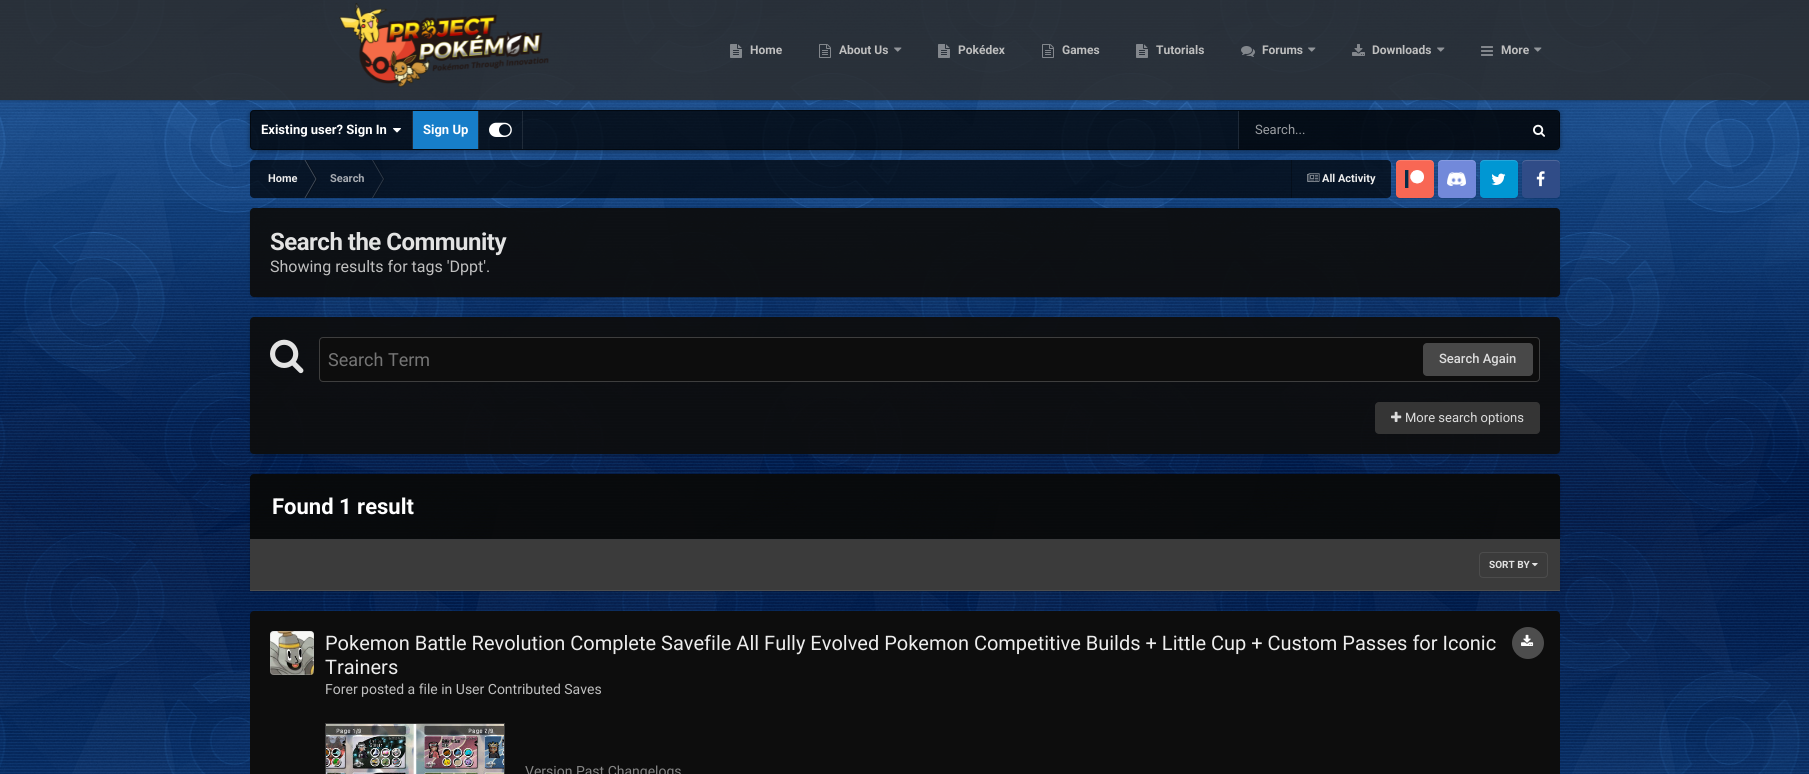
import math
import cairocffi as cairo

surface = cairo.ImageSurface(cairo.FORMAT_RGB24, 1809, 774)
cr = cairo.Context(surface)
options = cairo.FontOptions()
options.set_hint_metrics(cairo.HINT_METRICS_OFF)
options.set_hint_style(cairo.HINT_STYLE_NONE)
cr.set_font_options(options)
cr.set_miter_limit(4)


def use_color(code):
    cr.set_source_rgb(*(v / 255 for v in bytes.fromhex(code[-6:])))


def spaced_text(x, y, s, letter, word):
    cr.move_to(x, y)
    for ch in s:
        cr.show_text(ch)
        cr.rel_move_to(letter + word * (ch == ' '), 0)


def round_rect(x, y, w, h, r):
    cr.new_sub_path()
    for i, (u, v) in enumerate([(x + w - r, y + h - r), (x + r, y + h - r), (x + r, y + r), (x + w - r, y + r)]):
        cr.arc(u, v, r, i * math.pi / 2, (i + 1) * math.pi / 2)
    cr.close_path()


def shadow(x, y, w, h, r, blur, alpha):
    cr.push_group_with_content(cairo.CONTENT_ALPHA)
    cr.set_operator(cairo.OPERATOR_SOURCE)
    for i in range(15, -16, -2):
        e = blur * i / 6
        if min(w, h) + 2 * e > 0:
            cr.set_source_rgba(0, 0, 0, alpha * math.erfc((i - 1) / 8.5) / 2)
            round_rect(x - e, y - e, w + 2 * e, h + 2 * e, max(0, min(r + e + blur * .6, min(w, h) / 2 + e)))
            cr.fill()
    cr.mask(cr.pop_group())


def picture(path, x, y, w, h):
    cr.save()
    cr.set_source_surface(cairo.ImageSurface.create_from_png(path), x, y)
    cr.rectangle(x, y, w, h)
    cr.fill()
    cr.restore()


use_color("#ffffff")
cr.paint()
picture("img1.png", 0, 0, 1809, 774)
picture("img2.png", 0, 0, 1809, 774)
cr.set_source_rgba(0, 0, 0, 0.1)
cr.rectangle(0, 100, 1809, 1)
cr.fill()
cr.save()
cr.rectangle(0, 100, 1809, 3)
cr.clip()
use_color("#000000")
shadow(0, 1, 1809, 100, 0, 2, 0.15)
cr.restore()
cr.set_source_rgba(0.173, 0.173, 0.173, 0.85)
cr.rectangle(0, 0, 1809, 100)
cr.fill()
picture("img3.png", 339, 3, 210, 84)
picture("img4.png", 730, 44, 12, 14)
cr.select_font_face("Roboto", cairo.FONT_SLANT_NORMAL, cairo.FONT_WEIGHT_BOLD)
cr.set_font_size(12)
use_color("#bfbfbf")
cr.move_to(750, 54)
cr.show_text("Home")
picture("img5.png", 819, 44, 12, 14)
cr.move_to(839, 54)
cr.show_text("About Us")
picture("img6.png", 894, 47, 8, 5)
picture("img7.png", 938, 44, 12, 14)
cr.move_to(958, 54)
cr.show_text("Pokédex")
picture("img8.png", 1042, 44, 12, 14)
cr.move_to(1062, 54)
cr.show_text("Games")
picture("img9.png", 1136, 44, 12, 14)
cr.move_to(1156, 54)
cr.show_text("Tutorials")
picture("img10.png", 1241, 46, 14, 11)
cr.move_to(1262, 54)
cr.show_text("Forums")
picture("img11.png", 1308, 47, 8, 5)
picture("img12.png", 1352, 44, 13, 12)
cr.move_to(1372, 54)
cr.show_text("Downloads")
picture("img13.png", 1437, 47, 8, 5)
picture("img14.png", 1481, 46, 12, 10)
cr.move_to(1501, 54)
cr.show_text("More")
picture("img15.png", 1534, 47, 8, 5)
cr.set_source_rgba(0, 0, 0, 0.7)
round_rect(250, 160, 1141, 38, 4)
cr.fill()
use_color("#000000")
shadow(1396, 161, 38, 38, 4, 1.5, 0.1)
use_color("#f86754")
round_rect(1396, 160, 38, 38, 4)
cr.fill()
cr.set_source_rgba(1, 1, 1, 0.15)
cr.new_path()
cr.move_to(1400, 161)
cr.curve_to(1398, 161, 1396, 163, 1396, 165)
cr.curve_to(1396, 159, 1400.5, 160, 1405, 160)
cr.line_to(1425, 160)
cr.curve_to(1429.5, 160, 1434, 159, 1434, 165)
cr.curve_to(1434, 163, 1432, 161, 1430, 161)
cr.close_path()
cr.fill()
use_color("#000000")
shadow(1438, 161, 38, 38, 4, 1.5, 0.1)
use_color("#7289da")
round_rect(1438, 160, 38, 38, 4)
cr.fill()
cr.set_source_rgba(1, 1, 1, 0.15)
cr.new_path()
cr.move_to(1442, 161)
cr.curve_to(1440, 161, 1438, 163, 1438, 165)
cr.curve_to(1438, 159, 1442.5, 160, 1447, 160)
cr.line_to(1467, 160)
cr.curve_to(1471.5, 160, 1476, 159, 1476, 165)
cr.curve_to(1476, 163, 1474, 161, 1472, 161)
cr.close_path()
cr.fill()
use_color("#000000")
shadow(1480, 161, 38, 38, 4, 1.5, 0.1)
use_color("#0097d3")
round_rect(1480, 160, 38, 38, 4)
cr.fill()
cr.set_source_rgba(1, 1, 1, 0.15)
cr.new_path()
cr.move_to(1484, 161)
cr.curve_to(1482, 161, 1480, 163, 1480, 165)
cr.curve_to(1480, 159, 1484.5, 160, 1489, 160)
cr.line_to(1509, 160)
cr.curve_to(1513.5, 160, 1518, 159, 1518, 165)
cr.curve_to(1518, 163, 1516, 161, 1514, 161)
cr.close_path()
cr.fill()
use_color("#000000")
shadow(1522, 161, 38, 38, 4, 1.5, 0.1)
use_color("#304c87")
round_rect(1522, 160, 38, 38, 4)
cr.fill()
cr.set_source_rgba(1, 1, 1, 0.15)
cr.new_path()
cr.move_to(1526, 161)
cr.curve_to(1524, 161, 1522, 163, 1522, 165)
cr.curve_to(1522, 159, 1526.5, 160, 1531, 160)
cr.line_to(1551, 160)
cr.curve_to(1555.5, 160, 1560, 159, 1560, 165)
cr.curve_to(1560, 163, 1558, 161, 1556, 161)
cr.close_path()
cr.fill()
cr.save()
cr.set_fill_rule(cairo.FILL_RULE_EVEN_ODD)
cr.new_path()
cr.move_to(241, 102)
cr.line_to(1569, 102)
cr.line_to(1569, 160)
cr.line_to(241, 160)
cr.close_path()
cr.move_to(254, 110)
cr.line_to(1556, 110)
cr.curve_to(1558, 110, 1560, 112, 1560, 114)
cr.line_to(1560, 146)
cr.curve_to(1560, 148, 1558, 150, 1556, 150)
cr.line_to(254, 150)
cr.curve_to(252, 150, 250, 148, 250, 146)
cr.line_to(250, 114)
cr.curve_to(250, 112, 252, 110, 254, 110)
cr.close_path()
cr.clip()
use_color("#000000")
shadow(250, 111, 1310, 40, 4, 2.5, 0.4)
cr.restore()
cr.set_source_rgba(0, 0, 0, 0.75)
round_rect(250, 110, 1310, 40, 4)
cr.fill()
round_rect(250.5, 110.5, 1309, 39, 3.5)
cr.set_source_rgba(0, 0, 0, 0.5)
cr.set_line_width(1)
cr.stroke()
cr.set_source_rgba(1, 1, 1, 0.1)
cr.rectangle(412, 111, 1, 38)
cr.fill()
cr.set_font_size(13)
use_color("#ffffff")
cr.move_to(261, 134)
cr.show_text("Existing user? Sign In")
picture("img16.png", 393, 128, 8, 5)
cr.set_source_rgba(1, 1, 1, 0.1)
cr.rectangle(478, 111, 1, 38)
cr.fill()
use_color("#177ec9")
cr.rectangle(413, 111, 65, 38)
cr.fill()
use_color("#ffffff")
cr.move_to(423, 134)
cr.show_text("Sign Up")
cr.set_source_rgba(1, 1, 1, 0.1)
cr.rectangle(522, 111, 1, 38)
cr.fill()
picture("img17.png", 489, 122, 23, 15)
cr.rectangle(1238, 111, 1, 38)
cr.fill()
cr.set_source_rgba(0, 0, 0, 0.3)
cr.new_path()
cr.move_to(1239, 111)
cr.line_to(1555, 111)
cr.curve_to(1557, 111, 1559, 113, 1559, 115)
cr.line_to(1559, 145)
cr.curve_to(1559, 147, 1557, 149, 1555, 149)
cr.line_to(1239, 149)
cr.close_path()
cr.fill()
cr.select_font_face("Roboto")
use_color("#9b9ea2")
cr.move_to(1255, 134)
cr.show_text("Search...")
picture("img18.png", 1533, 124, 12, 13)
cr.select_font_face("Roboto", cairo.FONT_SLANT_NORMAL, cairo.FONT_WEIGHT_BOLD)
cr.set_font_size(11)
use_color("#ededed")
cr.move_to(268, 182)
cr.show_text("Home")
cr.set_source_rgba(1, 1, 1, 0.25)
cr.new_path()
cr.move_to(304.5, 160)
cr.line_to(305.5, 160)
cr.line_to(316.5, 179)
cr.line_to(315.5, 179)
cr.close_path()
cr.fill()
cr.set_source_rgba(0, 0, 0, 0.3)
cr.new_path()
cr.move_to(305.5, 160)
cr.line_to(306.5, 160)
cr.line_to(317.5, 179)
cr.line_to(316.5, 179)
cr.close_path()
cr.fill()
cr.set_source_rgba(1, 1, 1, 0.25)
cr.new_path()
cr.move_to(304.5, 198)
cr.line_to(305.5, 198)
cr.line_to(316.5, 179)
cr.line_to(315.5, 179)
cr.close_path()
cr.fill()
cr.set_source_rgba(0, 0, 0, 0.3)
cr.new_path()
cr.move_to(305.5, 198)
cr.line_to(306.5, 198)
cr.line_to(317.5, 179)
cr.line_to(316.5, 179)
cr.close_path()
cr.fill()
use_color("#a8acb2")
cr.move_to(330, 182)
cr.show_text("Search")
cr.set_source_rgba(1, 1, 1, 0.17)
cr.new_path()
cr.move_to(372, 160)
cr.line_to(373, 160)
cr.line_to(384, 179)
cr.line_to(383, 179)
cr.close_path()
cr.fill()
cr.set_source_rgba(0, 0, 0, 0.21)
cr.new_path()
cr.move_to(373, 160)
cr.line_to(374, 160)
cr.line_to(385, 179)
cr.line_to(384, 179)
cr.close_path()
cr.fill()
cr.set_source_rgba(1, 1, 1, 0.17)
cr.new_path()
cr.move_to(372, 198)
cr.line_to(373, 198)
cr.line_to(384, 179)
cr.line_to(383, 179)
cr.close_path()
cr.fill()
cr.set_source_rgba(0, 0, 0, 0.21)
cr.new_path()
cr.move_to(373, 198)
cr.line_to(374, 198)
cr.line_to(385, 179)
cr.line_to(384, 179)
cr.close_path()
cr.fill()
cr.set_source_rgba(0, 0, 0, 0.3)
cr.rectangle(1291, 160, 1, 38)
cr.fill()
picture("img19.png", 1307, 173, 13, 9)
use_color("#ededed")
cr.move_to(1322, 182)
cr.show_text("All Activity")
picture("img20.png", 1405, 170, 19, 18)
picture("img21.png", 1447, 172, 19, 14)
picture("img22.png", 1491, 173, 15, 12)
picture("img23.png", 1536, 171, 9, 16)
cr.save()
cr.set_fill_rule(cairo.FILL_RULE_EVEN_ODD)
cr.new_path()
cr.move_to(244, 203)
cr.line_to(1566, 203)
cr.line_to(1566, 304)
cr.line_to(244, 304)
cr.close_path()
cr.move_to(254, 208)
cr.line_to(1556, 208)
cr.curve_to(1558, 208, 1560, 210, 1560, 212)
cr.line_to(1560, 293)
cr.curve_to(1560, 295, 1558, 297, 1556, 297)
cr.line_to(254, 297)
cr.curve_to(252, 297, 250, 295, 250, 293)
cr.line_to(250, 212)
cr.curve_to(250, 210, 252, 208, 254, 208)
cr.close_path()
cr.clip()
use_color("#000000")
shadow(250, 209, 1310, 89, 4, 1.5, 0.2)
cr.restore()
cr.set_source_rgba(0.051, 0.051, 0.051, 0.93)
round_rect(250, 208, 1310, 89, 4)
cr.fill()
cr.set_font_size(24)
use_color("#e3e3e3")
spaced_text(270, 250, "Search the Community", -0.5, 0)
cr.select_font_face("Roboto")
cr.set_font_size(16)
use_color("#bfbfbf")
cr.move_to(270, 272)
cr.show_text("Showing results for tags 'Dppt'.")
cr.save()
cr.set_fill_rule(cairo.FILL_RULE_EVEN_ODD)
cr.new_path()
cr.move_to(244, 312)
cr.line_to(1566, 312)
cr.line_to(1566, 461)
cr.line_to(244, 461)
cr.close_path()
cr.move_to(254, 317)
cr.line_to(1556, 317)
cr.curve_to(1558, 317, 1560, 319, 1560, 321)
cr.line_to(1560, 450)
cr.curve_to(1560, 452, 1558, 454, 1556, 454)
cr.line_to(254, 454)
cr.curve_to(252, 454, 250, 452, 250, 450)
cr.line_to(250, 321)
cr.curve_to(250, 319, 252, 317, 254, 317)
cr.close_path()
cr.clip()
use_color("#000000")
shadow(250, 318, 1310, 137, 4, 1.5, 0.2)
cr.restore()
cr.set_source_rgba(0.051, 0.051, 0.051, 0.93)
round_rect(250, 317, 1310, 137, 4)
cr.fill()
picture("img24.png", 270, 339, 34, 35)
use_color("#0d0d0d")
round_rect(319.5, 337.5, 1220, 44, 3.5)
cr.fill_preserve()
use_color("#3e3e3e")
cr.stroke()
cr.set_font_size(18)
use_color("#757575")
cr.move_to(328, 366)
cr.show_text("Search Term")
use_color("#484848")
round_rect(1423, 343, 110, 33, 4)
cr.fill()
cr.select_font_face("Roboto Medium")
cr.set_font_size(13)
use_color("#dddddd")
cr.move_to(1439, 363)
cr.show_text("Search Again")
use_color("#353535")
round_rect(1375, 402, 165, 32, 4)
cr.fill()
picture("img25.png", 1391, 411, 11, 11)
cr.select_font_face("Roboto")
use_color("#dddddd")
cr.move_to(1405, 422)
cr.show_text("More search options")
cr.save()
cr.set_fill_rule(cairo.FILL_RULE_EVEN_ODD)
cr.new_path()
cr.move_to(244, 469)
cr.line_to(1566, 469)
cr.line_to(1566, 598)
cr.line_to(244, 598)
cr.close_path()
cr.move_to(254, 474)
cr.line_to(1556, 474)
cr.curve_to(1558, 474, 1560, 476, 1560, 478)
cr.line_to(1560, 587)
cr.curve_to(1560, 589, 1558, 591, 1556, 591)
cr.line_to(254, 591)
cr.curve_to(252, 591, 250, 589, 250, 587)
cr.line_to(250, 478)
cr.curve_to(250, 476, 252, 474, 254, 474)
cr.close_path()
cr.clip()
use_color("#000000")
shadow(250, 475, 1310, 117, 4, 1.5, 0.2)
cr.restore()
cr.set_source_rgba(0.051, 0.051, 0.051, 0.93)
round_rect(250, 474, 1310, 117, 4)
cr.fill()
cr.set_source_rgba(0, 0, 0, 0.3)
cr.new_path()
cr.move_to(254, 474)
cr.line_to(1556, 474)
cr.curve_to(1558, 474, 1560, 476, 1560, 478)
cr.line_to(1560, 540)
cr.line_to(250, 540)
cr.line_to(250, 478)
cr.curve_to(250, 476, 252, 474, 254, 474)
cr.close_path()
cr.fill()
use_color("#3a3b3d")
cr.rectangle(250, 539, 1310, 1)
cr.fill()
cr.select_font_face("Roboto", cairo.FONT_SLANT_NORMAL, cairo.FONT_WEIGHT_BOLD)
cr.set_font_size(22)
use_color("#ffffff")
cr.move_to(272, 514)
cr.show_text("Found 1 result")
use_color("#3b3b3b")
cr.rectangle(250, 540, 1310, 50)
cr.fill()
use_color("#4f4f4f")
cr.rectangle(250, 590, 1310, 1)
cr.fill()
picture("img26.png", 1532, 563, 6, 4)
round_rect(1479.5, 552.5, 68, 25, 3.5)
use_color("#4c4c4c")
cr.stroke()
cr.set_font_size(10)
use_color("#e3e3e3")
cr.move_to(1489, 568)
cr.show_text("SORT BY")
use_color("#0d0d0d")
round_rect(250, 611, 1310, 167, 4)
cr.fill()
picture("img27.png", 270, 631, 44, 44)
round_rect(270.5, 631.5, 43, 43, 3.5)
cr.set_source_rgba(0.749, 0.749, 0.749, 0.3)
cr.stroke()
cr.select_font_face("Roboto")
cr.set_font_size(20)
use_color("#ededed")
cr.move_to(325, 650)
cr.show_text("Pokemon Battle Revolution Complete Savefile All Fully Evolved Pokemon Competitive Builds + Little Cup + Custom Passes for Iconic")
cr.move_to(325, 674)
cr.show_text("Trainers")
cr.set_font_size(14)
use_color("#bfbfbf")
cr.move_to(325, 694)
cr.show_text("Forer posted a file in User Contributed Saves")
use_color("#4d4d4d")
cr.new_path()
cr.arc(1528, 643, 16, 0, 2 * math.pi)
cr.fill()
picture("img28.png", 1521, 634, 13, 12)
picture("img29.png", 326, 724, 178, 50)
cr.rectangle(325.5, 723.5, 179, 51)
use_color("#3b3b3b")
cr.stroke()
use_color("#878787")
cr.move_to(525, 776)
cr.show_text("Version Past Changelogs")
surface.write_to_png("result.png")
